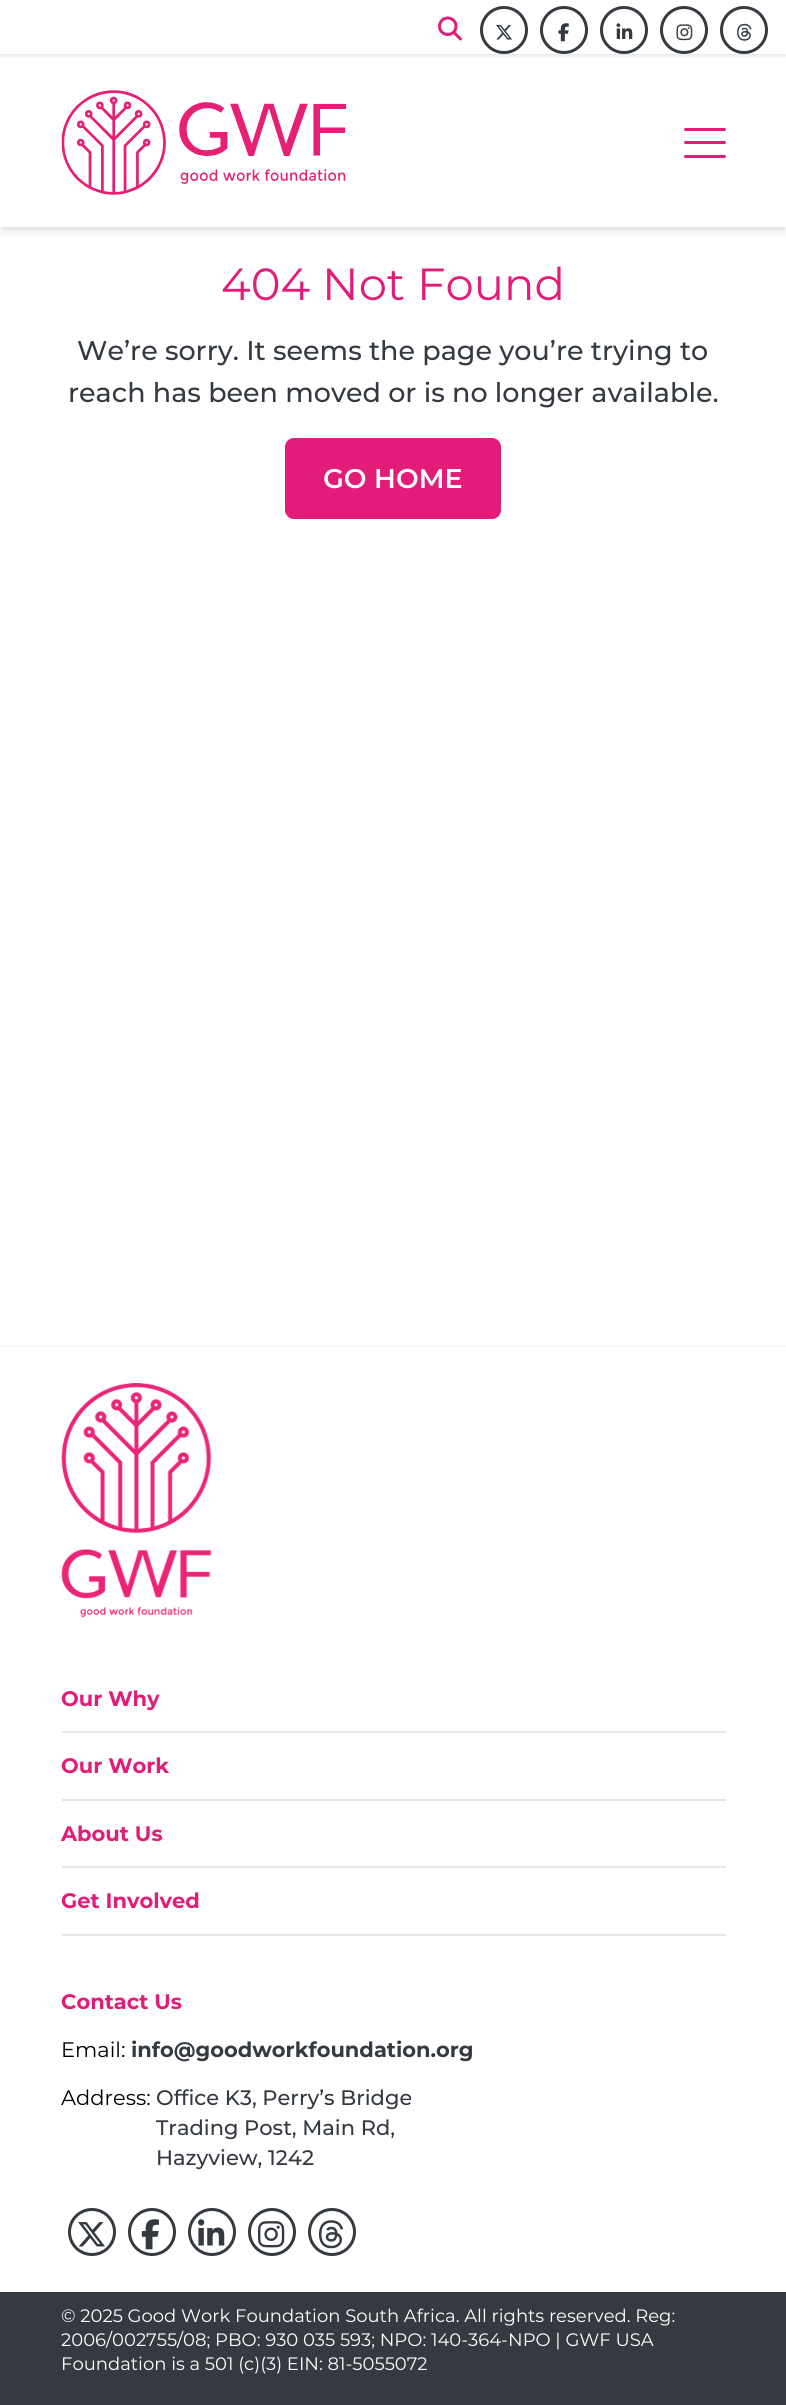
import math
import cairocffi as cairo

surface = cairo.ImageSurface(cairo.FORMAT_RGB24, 786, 2405)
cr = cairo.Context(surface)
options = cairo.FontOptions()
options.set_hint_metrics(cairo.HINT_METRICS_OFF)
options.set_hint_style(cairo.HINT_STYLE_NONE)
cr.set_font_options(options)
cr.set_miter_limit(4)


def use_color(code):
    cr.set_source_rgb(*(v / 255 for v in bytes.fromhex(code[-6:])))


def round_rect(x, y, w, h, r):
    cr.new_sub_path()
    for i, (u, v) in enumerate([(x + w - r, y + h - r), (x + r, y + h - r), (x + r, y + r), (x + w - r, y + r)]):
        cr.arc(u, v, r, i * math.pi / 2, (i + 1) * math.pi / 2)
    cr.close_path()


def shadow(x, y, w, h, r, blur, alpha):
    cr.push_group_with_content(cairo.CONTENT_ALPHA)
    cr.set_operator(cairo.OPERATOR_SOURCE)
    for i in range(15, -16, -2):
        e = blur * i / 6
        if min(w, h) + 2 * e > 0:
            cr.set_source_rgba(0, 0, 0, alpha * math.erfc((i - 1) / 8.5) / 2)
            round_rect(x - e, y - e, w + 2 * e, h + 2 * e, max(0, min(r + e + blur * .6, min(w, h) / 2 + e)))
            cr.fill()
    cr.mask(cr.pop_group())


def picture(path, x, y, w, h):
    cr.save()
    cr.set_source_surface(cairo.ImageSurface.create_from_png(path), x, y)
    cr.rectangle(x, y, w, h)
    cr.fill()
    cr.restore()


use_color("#ffffff")
cr.paint()
use_color("#000000")
shadow(3, 6, 780, 221, 0, 3, 0.1)
shadow(2, 8, 783, 223, 0, 4.5, 0.1)
use_color("#ffffff")
cr.rectangle(0, 1, 786, 226)
cr.fill()
cr.save()
cr.rectangle(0, 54, 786, 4)
cr.clip()
use_color("#000000")
shadow(0, 8, 786, 48, 0, 2, 0.1)
cr.restore()
picture("img1.png", 438, 16, 24, 25)
cr.arc(504, 30, 22.5, 0, 2 * math.pi)
use_color("#343a40")
cr.set_line_width(3)
cr.stroke()
picture("img2.png", 496, 24, 16, 16)
cr.arc(564, 30, 22.5, 0, 2 * math.pi)
cr.stroke()
picture("img3.png", 558, 23, 11, 19)
cr.arc(624, 30, 22.5, 0, 2 * math.pi)
cr.stroke()
picture("img4.png", 616, 23, 17, 16)
cr.arc(684, 30, 22.5, 0, 2 * math.pi)
cr.stroke()
picture("img5.png", 676, 24, 17, 17)
cr.arc(744, 30, 22.5, 0, 2 * math.pi)
cr.stroke()
picture("img6.png", 737, 23, 15, 18)
picture("img7.png", 61, 90, 286, 105)
use_color("#e31c79")
round_rect(684, 128, 42, 3, 1.5)
cr.fill()
round_rect(684, 141, 42, 3, 1.5)
cr.fill()
round_rect(684, 155, 42, 3, 1.5)
cr.fill()
cr.select_font_face("Montserrat")
cr.set_font_size(45)
cr.move_to(221, 300)
cr.show_text("404 Not Found")
cr.select_font_face("Montserrat Medium")
cr.set_font_size(27)
use_color("#343a40")
cr.move_to(77, 360)
cr.show_text("We’re sorry. It seems the page you’re trying to")
cr.move_to(68, 402)
cr.show_text("reach has been moved or is no longer available.")
use_color("#e31c79")
round_rect(286, 439, 214, 79, 8)
cr.fill_preserve()
cr.set_line_width(2)
cr.stroke()
cr.select_font_face("Montserrat SemiBold")
use_color("#ffffff")
cr.move_to(323, 488)
cr.show_text("GO HOME")
cr.save()
cr.rectangle(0, 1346, 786, 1)
cr.clip()
use_color("#1f2937")
shadow(0, 1349, 786, 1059, 0, 2, 0.5)
cr.restore()
picture("img8.png", 61, 1383, 151, 234)
use_color("#e5e7eb")
cr.rectangle(62, 1731, 664, 2)
cr.fill()
cr.select_font_face("Montserrat", cairo.FONT_SLANT_NORMAL, cairo.FONT_WEIGHT_BOLD)
cr.set_font_size(21)
use_color("#e31c79")
cr.move_to(61, 1706)
cr.show_text("Our Why")
use_color("#e5e7eb")
cr.rectangle(62, 1799, 664, 2)
cr.fill()
use_color("#e31c79")
cr.move_to(61, 1773)
cr.show_text("Our Work")
use_color("#e5e7eb")
cr.rectangle(62, 1866, 664, 2)
cr.fill()
use_color("#e31c79")
cr.move_to(61, 1841)
cr.show_text("About Us")
use_color("#e5e7eb")
cr.rectangle(62, 1934, 664, 2)
cr.fill()
use_color("#e31c79")
cr.move_to(61, 1908)
cr.show_text("Get Involved")
cr.move_to(61, 2009)
cr.show_text("Contact Us")
cr.select_font_face("Montserrat")
use_color("#000000")
cr.move_to(61, 2057)
cr.show_text("Email:")
cr.select_font_face("Montserrat", cairo.FONT_SLANT_NORMAL, cairo.FONT_WEIGHT_BOLD)
use_color("#343a40")
cr.move_to(131, 2057)
cr.show_text("info@goodworkfoundation.org")
cr.select_font_face("Montserrat")
use_color("#000000")
cr.move_to(61, 2105)
cr.show_text("Address:")
cr.select_font_face("Montserrat Medium")
use_color("#343a40")
cr.move_to(156, 2105)
cr.show_text("Office K3, Perry’s Bridge")
cr.move_to(156, 2135)
cr.show_text("Trading Post, Main Rd,")
cr.move_to(156, 2165)
cr.show_text("Hazyview, 1242")
cr.new_path()
cr.arc(92, 2232, 22.5, 0, 2 * math.pi)
cr.set_line_width(3)
cr.stroke()
picture("img9.png", 78, 2222, 27, 25)
cr.arc(152, 2232, 22.5, 0, 2 * math.pi)
cr.stroke()
picture("img10.png", 141, 2219, 18, 31)
cr.arc(212, 2232, 22.5, 0, 2 * math.pi)
cr.stroke()
picture("img11.png", 198, 2219, 27, 27)
cr.arc(272, 2232, 22.5, 0, 2 * math.pi)
cr.stroke()
picture("img12.png", 258, 2221, 27, 27)
cr.arc(332, 2232, 22.5, 0, 2 * math.pi)
cr.stroke()
picture("img13.png", 318, 2220, 26, 29)
cr.rectangle(0, 2292, 786, 113)
cr.fill()
cr.select_font_face("Montserrat")
cr.set_font_size(18)
use_color("#ffffff")
cr.move_to(61, 2322)
cr.show_text("© 2025 Good Work Foundation South Africa. All rights reserved. Reg:")
cr.move_to(61, 2346)
cr.show_text("2006/002755/08; PBO: 930 035 593; NPO: 140-364-NPO | GWF USA")
cr.move_to(61, 2370)
cr.show_text("Foundation is a 501 (c)(3) EIN: 81-5055072")
surface.write_to_png("result.png")
